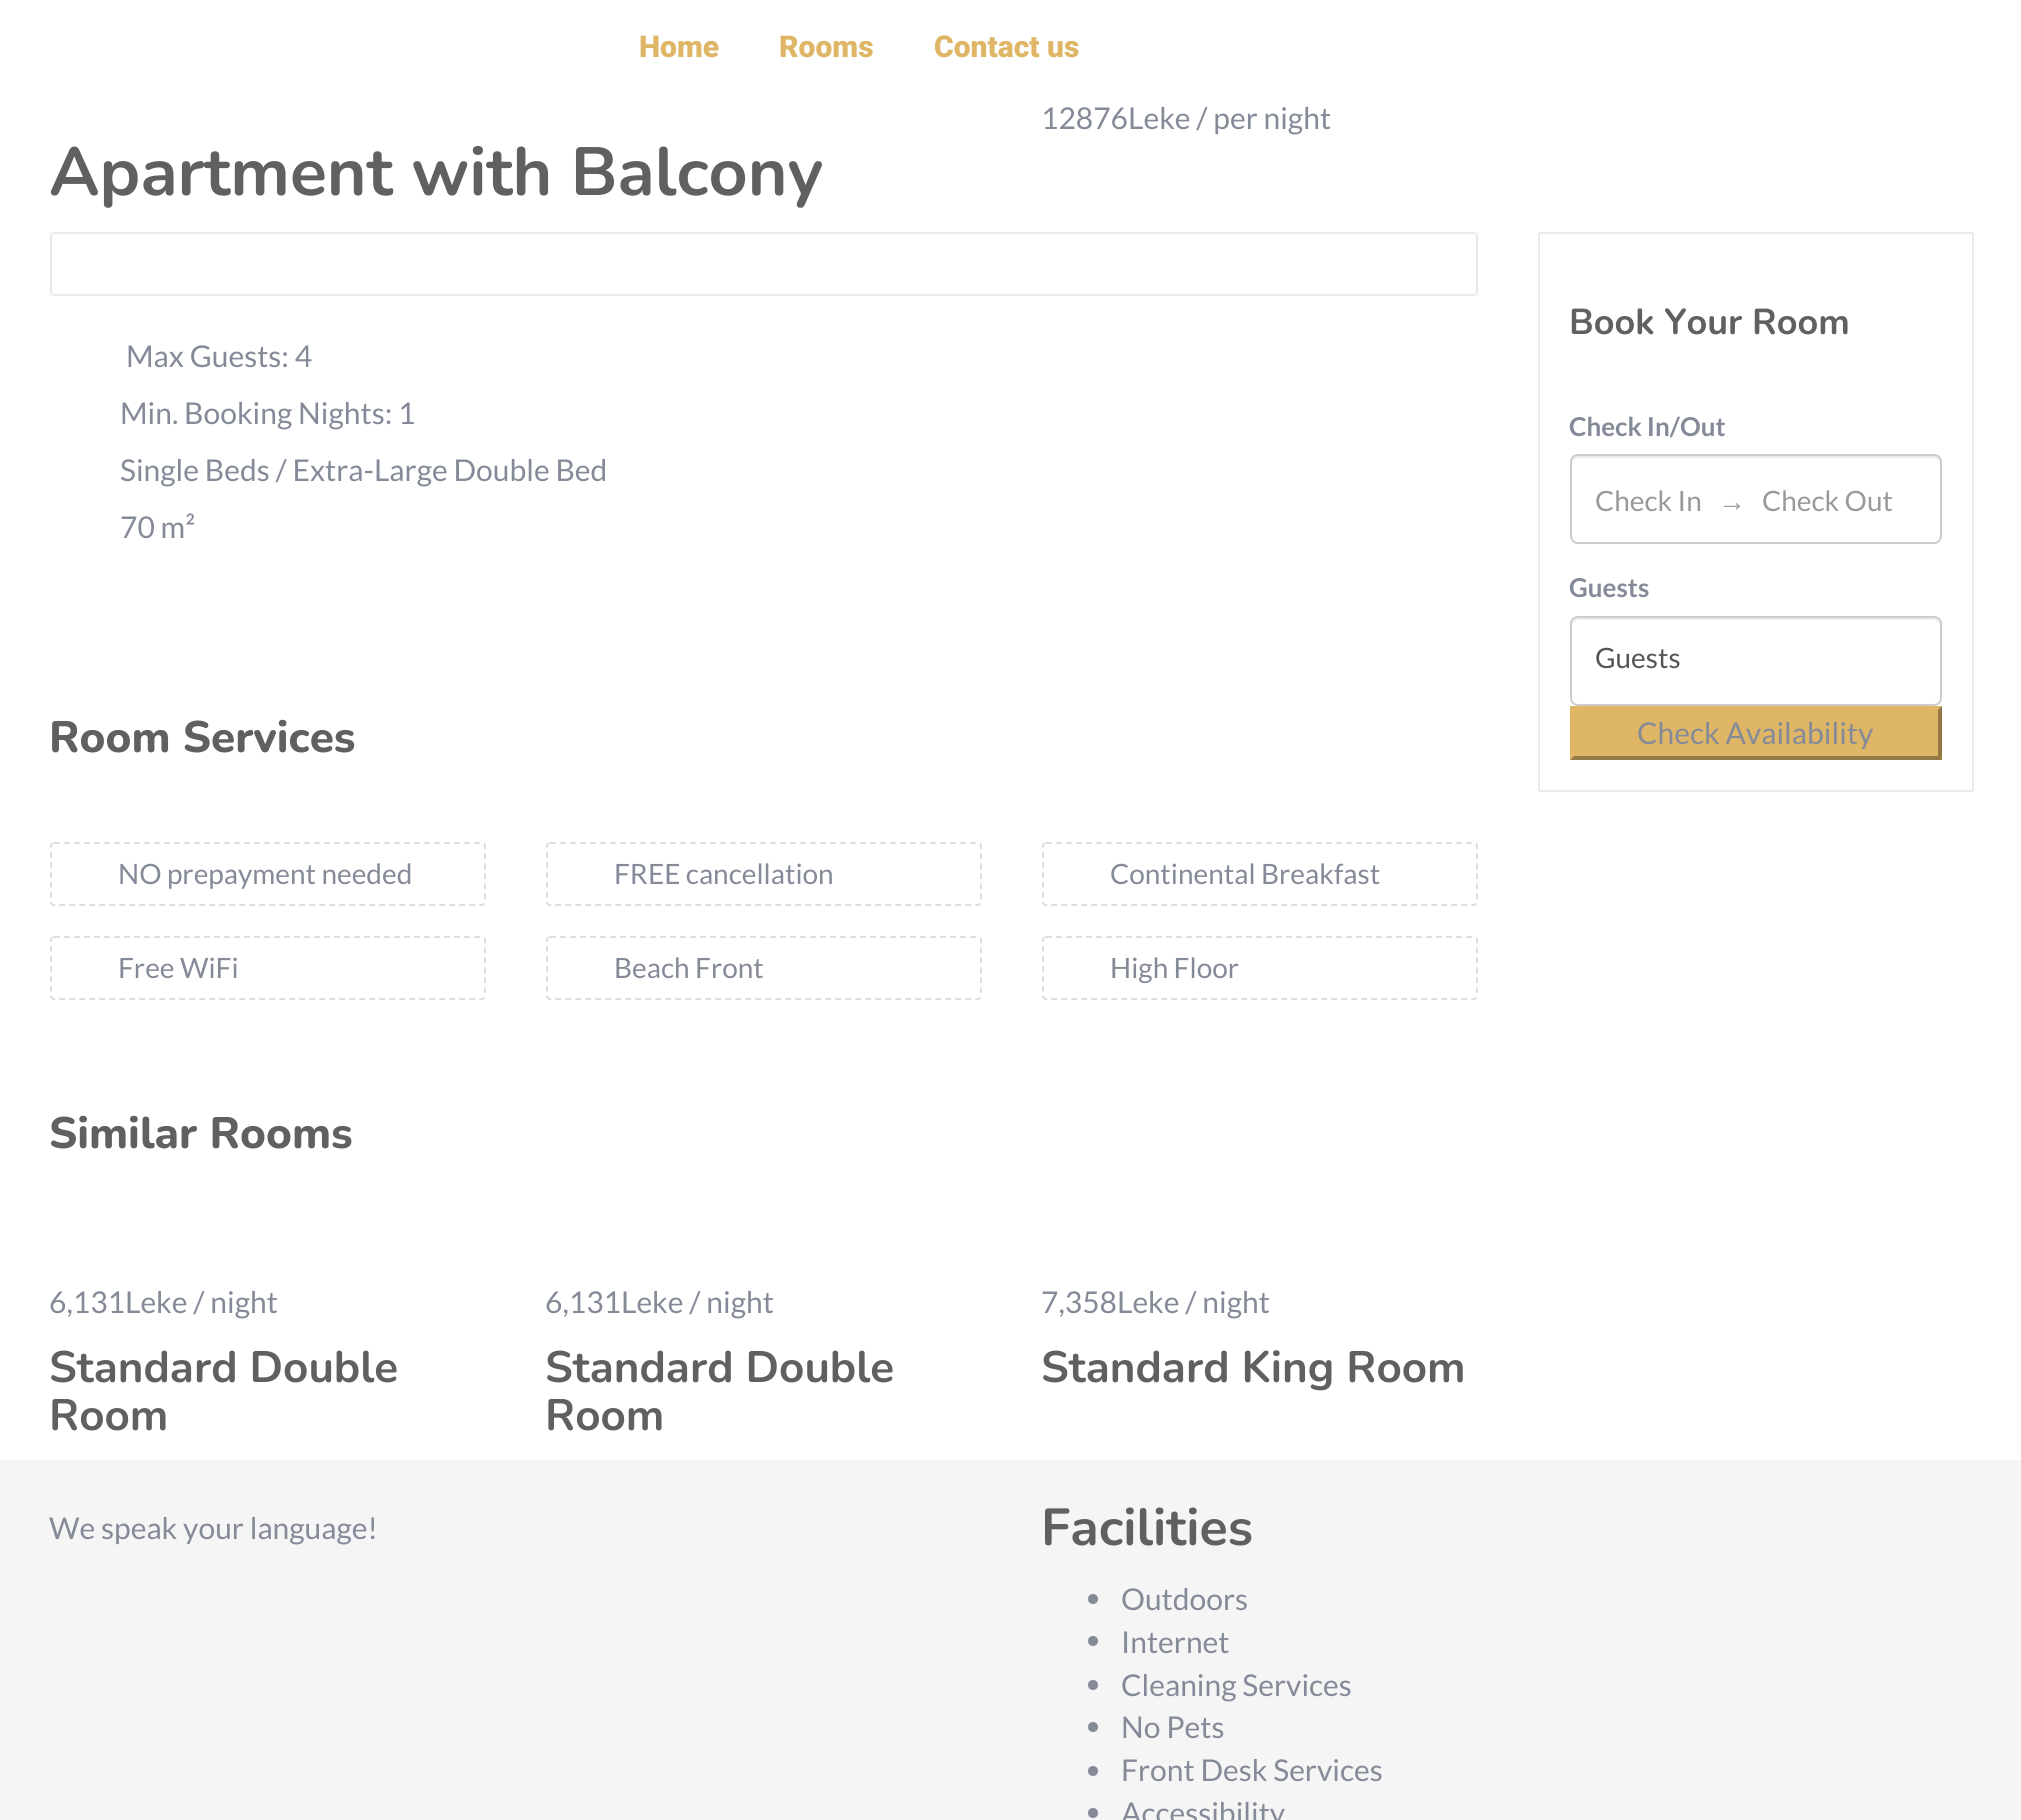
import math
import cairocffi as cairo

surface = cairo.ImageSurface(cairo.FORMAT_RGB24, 2021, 1820)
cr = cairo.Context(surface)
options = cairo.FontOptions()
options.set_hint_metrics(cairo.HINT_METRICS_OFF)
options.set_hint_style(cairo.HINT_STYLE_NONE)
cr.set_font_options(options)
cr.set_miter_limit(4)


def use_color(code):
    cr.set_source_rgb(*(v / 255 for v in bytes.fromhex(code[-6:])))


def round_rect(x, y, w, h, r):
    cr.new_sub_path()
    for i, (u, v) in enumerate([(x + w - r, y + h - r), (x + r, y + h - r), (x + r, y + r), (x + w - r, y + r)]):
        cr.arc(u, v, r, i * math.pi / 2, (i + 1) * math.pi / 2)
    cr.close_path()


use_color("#ffffff")
cr.paint()
cr.select_font_face("Roboto Black")
cr.set_font_size(30)
use_color("#deb666")
cr.move_to(639, 57)
cr.show_text("Home")
cr.move_to(779, 57)
cr.show_text("Rooms")
cr.move_to(934, 57)
cr.show_text("Contact us")
cr.select_font_face("Lato")
use_color("#858a99")
cr.move_to(1041, 129)
cr.show_text("12876Leke / per night")
cr.select_font_face("Nunito", cairo.FONT_SLANT_NORMAL, cairo.FONT_WEIGHT_BOLD)
cr.set_font_size(68)
use_color("#606060")
cr.move_to(49, 195)
cr.show_text("Apartment with Balcony")
round_rect(51, 233, 1426, 62, 3)
use_color("#eaeaea")
cr.stroke()
cr.select_font_face("Lato")
cr.set_font_size(30)
use_color("#858a99")
cr.move_to(126, 367)
cr.show_text("Max Guests: 4")
cr.move_to(120, 424)
cr.show_text("Min. Booking Nights: 1")
cr.move_to(120, 481)
cr.show_text("Single Beds / Extra-Large Double Bed")
cr.move_to(120, 538)
cr.show_text("70 m²")
cr.select_font_face("Nunito ExtraBold")
cr.set_font_size(44)
use_color("#606060")
cr.move_to(49, 752)
cr.show_text("Room Services")
cr.new_path()
cr.move_to(54, 843)
cr.line_to(482, 843)
cr.curve_to(483.5, 843, 485, 844.5, 485, 846)
cr.line_to(485, 902)
cr.curve_to(485, 903.5, 483.5, 905, 482, 905)
cr.line_to(54, 905)
cr.curve_to(52.5, 905, 51, 903.5, 51, 902)
cr.line_to(51, 846)
cr.curve_to(51, 844.5, 52.5, 843, 54, 843)
cr.close_path()
use_color("#dedede")
cr.set_dash([6, 4])
cr.stroke()
cr.select_font_face("Lato")
cr.set_font_size(28)
use_color("#858a99")
cr.move_to(118, 884)
cr.show_text("NO prepayment needed")
cr.new_path()
cr.move_to(550, 843)
cr.line_to(978, 843)
cr.curve_to(979.5, 843, 981, 844.5, 981, 846)
cr.line_to(981, 902)
cr.curve_to(981, 903.5, 979.5, 905, 978, 905)
cr.line_to(550, 905)
cr.curve_to(548.5, 905, 547, 903.5, 547, 902)
cr.line_to(547, 846)
cr.curve_to(547, 844.5, 548.5, 843, 550, 843)
cr.close_path()
use_color("#dedede")
cr.stroke()
use_color("#858a99")
cr.move_to(614, 884)
cr.show_text("FREE cancellation")
cr.new_path()
cr.move_to(1046, 843)
cr.line_to(1474, 843)
cr.curve_to(1475.5, 843, 1477, 844.5, 1477, 846)
cr.line_to(1477, 902)
cr.curve_to(1477, 903.5, 1475.5, 905, 1474, 905)
cr.line_to(1046, 905)
cr.curve_to(1044.5, 905, 1043, 903.5, 1043, 902)
cr.line_to(1043, 846)
cr.curve_to(1043, 844.5, 1044.5, 843, 1046, 843)
cr.close_path()
use_color("#dedede")
cr.stroke()
use_color("#858a99")
cr.move_to(1110, 884)
cr.show_text("Continental Breakfast")
cr.new_path()
cr.move_to(54, 937)
cr.line_to(482, 937)
cr.curve_to(483.5, 937, 485, 938.5, 485, 940)
cr.line_to(485, 996)
cr.curve_to(485, 997.5, 483.5, 999, 482, 999)
cr.line_to(54, 999)
cr.curve_to(52.5, 999, 51, 997.5, 51, 996)
cr.line_to(51, 940)
cr.curve_to(51, 938.5, 52.5, 937, 54, 937)
cr.close_path()
use_color("#dedede")
cr.stroke()
use_color("#858a99")
cr.move_to(118, 978)
cr.show_text("Free WiFi")
cr.new_path()
cr.move_to(550, 937)
cr.line_to(978, 937)
cr.curve_to(979.5, 937, 981, 938.5, 981, 940)
cr.line_to(981, 996)
cr.curve_to(981, 997.5, 979.5, 999, 978, 999)
cr.line_to(550, 999)
cr.curve_to(548.5, 999, 547, 997.5, 547, 996)
cr.line_to(547, 940)
cr.curve_to(547, 938.5, 548.5, 937, 550, 937)
cr.close_path()
use_color("#dedede")
cr.stroke()
use_color("#858a99")
cr.move_to(614, 978)
cr.show_text("Beach Front")
cr.new_path()
cr.move_to(1046, 937)
cr.line_to(1474, 937)
cr.curve_to(1475.5, 937, 1477, 938.5, 1477, 940)
cr.line_to(1477, 996)
cr.curve_to(1477, 997.5, 1475.5, 999, 1474, 999)
cr.line_to(1046, 999)
cr.curve_to(1044.5, 999, 1043, 997.5, 1043, 996)
cr.line_to(1043, 940)
cr.curve_to(1043, 938.5, 1044.5, 937, 1046, 937)
cr.close_path()
use_color("#dedede")
cr.stroke()
use_color("#858a99")
cr.move_to(1110, 978)
cr.show_text("High Floor")
cr.select_font_face("Nunito ExtraBold")
cr.set_font_size(44)
use_color("#606060")
cr.move_to(49, 1148)
cr.show_text("Similar Rooms")
cr.select_font_face("Lato")
cr.set_font_size(30)
use_color("#858a99")
cr.move_to(49, 1313)
cr.show_text("6,131Leke / night")
cr.select_font_face("Nunito", cairo.FONT_SLANT_NORMAL, cairo.FONT_WEIGHT_BOLD)
cr.set_font_size(44)
use_color("#606060")
cr.move_to(49, 1382)
cr.show_text("Standard Double")
cr.move_to(49, 1430)
cr.show_text("Room")
cr.select_font_face("Lato")
cr.set_font_size(30)
use_color("#858a99")
cr.move_to(545, 1313)
cr.show_text("6,131Leke / night")
cr.select_font_face("Nunito", cairo.FONT_SLANT_NORMAL, cairo.FONT_WEIGHT_BOLD)
cr.set_font_size(44)
use_color("#606060")
cr.move_to(545, 1382)
cr.show_text("Standard Double")
cr.move_to(545, 1430)
cr.show_text("Room")
cr.select_font_face("Lato")
cr.set_font_size(30)
use_color("#858a99")
cr.move_to(1041, 1313)
cr.show_text("7,358Leke / night")
cr.select_font_face("Nunito", cairo.FONT_SLANT_NORMAL, cairo.FONT_WEIGHT_BOLD)
cr.set_font_size(44)
use_color("#606060")
cr.move_to(1041, 1382)
cr.show_text("Standard King Room")
round_rect(1539, 233, 434, 558, 1)
use_color("#ebebeb")
cr.set_dash([])
cr.stroke()
cr.set_font_size(36)
use_color("#606060")
cr.move_to(1569, 334)
cr.show_text("Book Your Room")
cr.select_font_face("Lato", cairo.FONT_SLANT_NORMAL, cairo.FONT_WEIGHT_BOLD)
cr.set_font_size(26)
use_color("#858a99")
cr.move_to(1569, 436)
cr.show_text("Check In/Out")
use_color("#ececec")
cr.new_path()
cr.move_to(1578, 458)
cr.line_to(1934, 458)
cr.curve_to(1937, 458, 1940, 461, 1940, 464)
cr.line_to(1940, 462)
cr.curve_to(1940, 459, 1937, 456, 1934, 456)
cr.line_to(1578, 456)
cr.curve_to(1575, 456, 1572, 459, 1572, 462)
cr.line_to(1572, 464)
cr.curve_to(1572, 461, 1575, 458, 1578, 458)
cr.close_path()
cr.fill()
round_rect(1571, 455, 370, 88, 7)
use_color("#cccccc")
cr.stroke()
cr.select_font_face("Lato")
cr.set_font_size(28)
use_color("#999999")
cr.move_to(1595, 511)
cr.show_text("Check In")
cr.select_font_face("Liberation Serif")
cr.move_to(1718, 511)
cr.show_text("→")
cr.select_font_face("Lato")
cr.move_to(1762, 511)
cr.show_text("Check Out")
cr.select_font_face("Lato", cairo.FONT_SLANT_NORMAL, cairo.FONT_WEIGHT_BOLD)
cr.set_font_size(26)
use_color("#858a99")
cr.move_to(1569, 597)
cr.show_text("Guests")
use_color("#ececec")
cr.new_path()
cr.move_to(1578, 620)
cr.line_to(1934, 620)
cr.curve_to(1937, 620, 1940, 623, 1940, 626)
cr.line_to(1940, 624)
cr.curve_to(1940, 621, 1937, 618, 1934, 618)
cr.line_to(1578, 618)
cr.curve_to(1575, 618, 1572, 621, 1572, 624)
cr.line_to(1572, 626)
cr.curve_to(1572, 623, 1575, 620, 1578, 620)
cr.close_path()
cr.fill()
round_rect(1571, 617, 370, 88, 7)
use_color("#cccccc")
cr.stroke()
cr.select_font_face("Lato")
cr.set_font_size(28)
use_color("#555555")
cr.move_to(1595, 668)
cr.show_text("Guests")
use_color("#deb666")
cr.rectangle(1570, 706, 372, 54)
cr.fill()
use_color("#947944")
cr.new_path()
cr.move_to(1942, 706)
cr.line_to(1942, 760)
cr.line_to(1938, 756)
cr.line_to(1938, 710)
cr.close_path()
cr.fill()
cr.new_path()
cr.move_to(1942, 760)
cr.line_to(1570, 760)
cr.line_to(1574, 756)
cr.line_to(1938, 756)
cr.close_path()
cr.fill()
use_color("#deb666")
cr.new_path()
cr.move_to(1570, 760)
cr.line_to(1570, 706)
cr.line_to(1574, 710)
cr.line_to(1574, 756)
cr.close_path()
cr.fill()
cr.set_font_size(30)
use_color("#858a99")
cr.move_to(1637, 744)
cr.show_text("Check Availability")
use_color("#f5f5f5")
cr.rectangle(0, 1460, 2021, 360)
cr.fill()
use_color("#858a99")
cr.move_to(49, 1539)
cr.show_text("We speak your language!")
cr.select_font_face("Nunito", cairo.FONT_SLANT_NORMAL, cairo.FONT_WEIGHT_BOLD)
cr.set_font_size(52)
use_color("#606060")
cr.move_to(1041, 1545)
cr.show_text("Facilities")
use_color("#858a99")
cr.new_path()
cr.arc(1093, 1599, 5, 0, 2 * math.pi)
cr.fill()
cr.select_font_face("Lato")
cr.set_font_size(30)
cr.move_to(1121, 1610)
cr.show_text("Outdoors")
cr.new_path()
cr.arc(1093, 1641, 5, 0, 2 * math.pi)
cr.fill()
cr.move_to(1121, 1653)
cr.show_text("Internet")
cr.new_path()
cr.arc(1093, 1685, 5, 0, 2 * math.pi)
cr.fill()
cr.move_to(1121, 1696)
cr.show_text("Cleaning Services")
cr.new_path()
cr.arc(1093, 1727, 5, 0, 2 * math.pi)
cr.fill()
cr.move_to(1121, 1738)
cr.show_text("No Pets")
cr.new_path()
cr.arc(1093, 1771, 5, 0, 2 * math.pi)
cr.fill()
cr.move_to(1121, 1781)
cr.show_text("Front Desk Services")
cr.new_path()
cr.arc(1093, 1813, 5, 0, 2 * math.pi)
cr.fill()
cr.move_to(1121, 1824)
cr.show_text("Accessibility")
surface.write_to_png("result.png")
